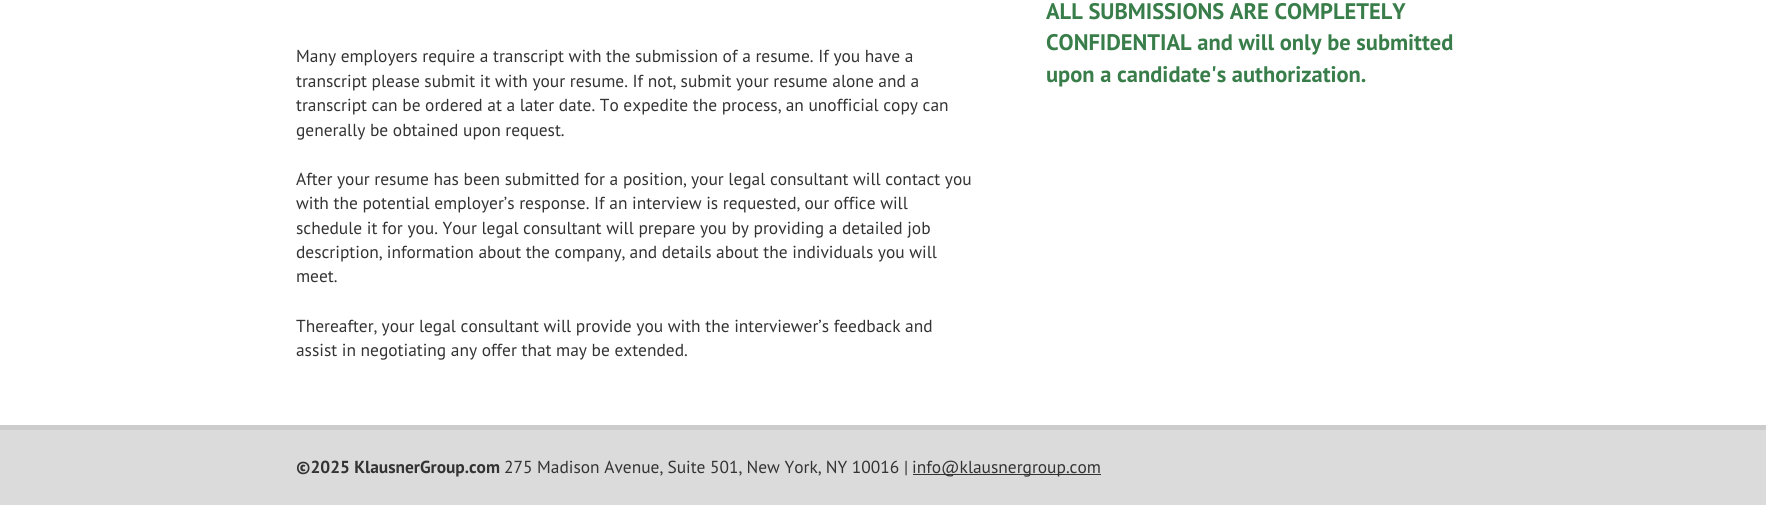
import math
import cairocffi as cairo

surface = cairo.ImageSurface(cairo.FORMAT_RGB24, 1766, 505)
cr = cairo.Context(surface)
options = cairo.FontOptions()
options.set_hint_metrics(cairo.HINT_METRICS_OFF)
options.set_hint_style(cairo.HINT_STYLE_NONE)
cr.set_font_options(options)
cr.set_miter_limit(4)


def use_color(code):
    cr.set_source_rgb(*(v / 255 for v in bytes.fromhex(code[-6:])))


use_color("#dbdbdb")
cr.paint()
use_color("#ffffff")
cr.rectangle(0, 0, 1766, 425)
cr.fill()
use_color("#cccccc")
cr.rectangle(0, 425, 1766, 5)
cr.fill()
cr.select_font_face("PT Sans")
cr.set_font_size(17.4)
use_color("#333333")
cr.move_to(296, 62)
cr.show_text("Many employers require a transcript with the submission of a resume. If you have a")
cr.move_to(296, 87)
cr.show_text("transcript please submit it with your resume. If not, submit your resume alone and a")
cr.move_to(296, 111)
cr.show_text("transcript can be ordered at a later date. To expedite the process, an unofficial copy can")
cr.move_to(296, 136)
cr.show_text("generally be obtained upon request.")
cr.move_to(296, 185)
cr.show_text("After your resume has been submitted for a position, your legal consultant will contact you")
cr.move_to(296, 209)
cr.show_text("with the potential employer’s response. If an interview is requested, our office will")
cr.move_to(296, 234)
cr.show_text("schedule it for you. Your legal consultant will prepare you by providing a detailed job")
cr.move_to(296, 258)
cr.show_text("description, information about the company, and details about the individuals you will")
cr.move_to(296, 282)
cr.show_text("meet.")
cr.move_to(296, 332)
cr.show_text("Thereafter, your legal consultant will provide you with the interviewer’s feedback and")
cr.move_to(296, 356)
cr.show_text("assist in negotiating any offer that may be extended.")
cr.select_font_face("PT Sans", cairo.FONT_SLANT_NORMAL, cairo.FONT_WEIGHT_BOLD)
cr.set_font_size(22.5)
use_color("#397e4a")
cr.move_to(1046, 19)
cr.show_text("ALL SUBMISSIONS ARE COMPLETELY")
cr.move_to(1046, 50)
cr.show_text("CONFIDENTIAL and will only be submitted")
cr.move_to(1046, 82)
cr.show_text("upon a candidate's authorization.")
cr.set_font_size(17.4)
use_color("#333333")
cr.move_to(296, 473)
cr.show_text("©2025 KlausnerGroup.com")
cr.select_font_face("PT Sans")
cr.move_to(504, 473)
cr.show_text("275 Madison Avenue, Suite 501, New York, NY 10016 |")
cr.rectangle(913, 474, 188, 1)
cr.fill()
cr.move_to(912, 473)
cr.show_text("info@klausnergroup.com")
surface.write_to_png("result.png")
